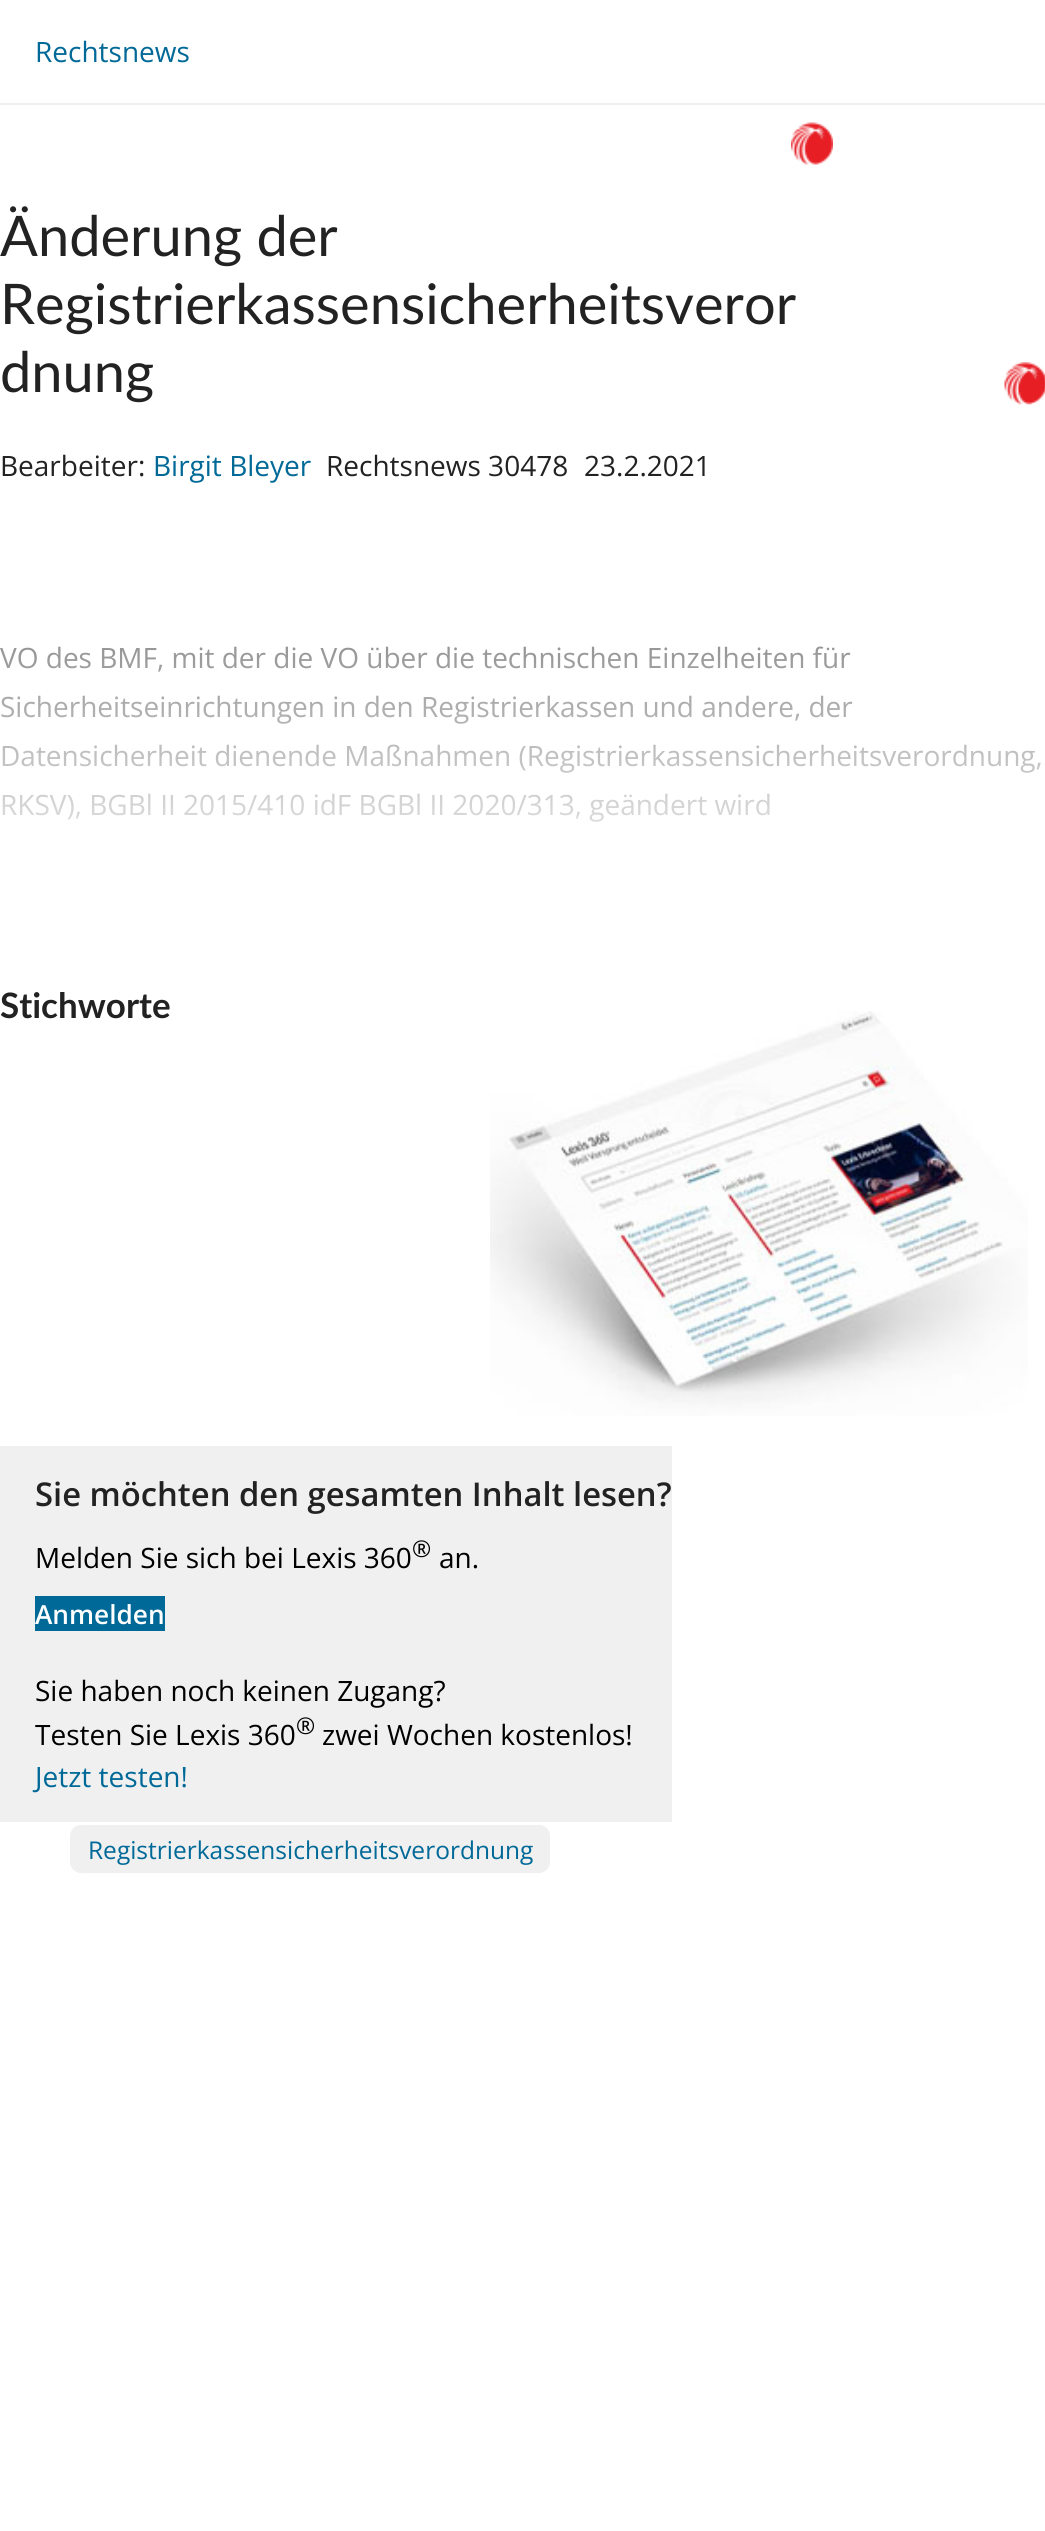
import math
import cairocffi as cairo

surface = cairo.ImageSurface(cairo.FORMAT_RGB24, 1045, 2531)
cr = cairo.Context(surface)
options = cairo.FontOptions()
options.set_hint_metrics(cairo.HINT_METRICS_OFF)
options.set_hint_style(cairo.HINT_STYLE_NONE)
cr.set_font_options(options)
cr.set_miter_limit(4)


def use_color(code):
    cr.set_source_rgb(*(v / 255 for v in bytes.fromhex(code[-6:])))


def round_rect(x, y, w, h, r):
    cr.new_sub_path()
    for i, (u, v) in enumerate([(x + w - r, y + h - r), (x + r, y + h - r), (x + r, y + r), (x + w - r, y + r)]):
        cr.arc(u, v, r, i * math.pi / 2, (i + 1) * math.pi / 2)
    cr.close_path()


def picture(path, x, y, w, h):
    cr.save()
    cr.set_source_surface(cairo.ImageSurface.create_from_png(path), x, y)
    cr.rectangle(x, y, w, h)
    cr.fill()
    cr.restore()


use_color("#ffffff")
cr.paint()
use_color("#f0f0f0")
cr.rectangle(0, 103, 1045, 2)
cr.fill()
cr.select_font_face("Open Sans")
cr.set_font_size(28)
use_color("#006997")
cr.move_to(35, 62)
cr.show_text("Rechtsnews")
picture("img1.png", 791, 122, 42, 43)
cr.select_font_face("Lato")
cr.set_font_size(56)
use_color("#222222")
cr.move_to(0, 256)
cr.show_text("Änderung der")
cr.move_to(0, 324)
cr.show_text("Registrierkassensicherheitsveror")
cr.move_to(0, 392)
cr.show_text("dnung")
picture("img2.png", 1004, 362, 41, 43)
cr.select_font_face("Open Sans")
cr.set_font_size(28)
cr.move_to(0, 476)
cr.show_text("Bearbeiter:")
use_color("#006997")
cr.move_to(153, 476)
cr.show_text("Birgit Bleyer")
use_color("#222222")
cr.move_to(326, 476)
cr.show_text("Rechtsnews 30478")
cr.move_to(584, 476)
cr.show_text("23.2.2021")
use_color("#919191")
cr.move_to(0, 668)
cr.show_text("VO des BMF, mit der die VO über die technischen Einzelheiten für")
cr.move_to(0, 717)
cr.show_text("Sicherheitseinrichtungen in den Registrierkassen und andere, der")
cr.move_to(0, 766)
cr.show_text("Datensicherheit dienende Maßnahmen (Registrierkassensicherheitsverordnung,")
cr.move_to(0, 815)
cr.show_text("RKSV), BGBl II 2015/410 idF BGBl II 2020/313, geändert wird")
gradient = cairo.LinearGradient(523, 949, 523, 599)
gradient.add_color_stop_rgba(0.1, 1, 1, 1, 1)
gradient.add_color_stop_rgba(0.9, 1, 1, 1, 0)
cr.set_source(gradient)
cr.rectangle(0, 647, 1041, 175)
cr.fill()
cr.select_font_face("Lato", cairo.FONT_SLANT_NORMAL, cairo.FONT_WEIGHT_BOLD)
cr.set_font_size(35)
use_color("#222222")
cr.move_to(0, 1018)
cr.show_text("Stichworte")
use_color("#f0f0f0")
round_rect(70, 1825, 480, 48, 11)
cr.fill()
cr.select_font_face("Open Sans")
cr.set_font_size(24.5)
use_color("#006997")
cr.move_to(88, 1859)
cr.show_text("Registrierkassensicherheitsverordnung")
picture("img3.png", 490, 1011, 538, 405)
use_color("#f0f0f0")
cr.rectangle(0, 1446, 672, 376)
cr.fill()
cr.select_font_face("Open Sans SemiBold")
cr.set_font_size(32.75)
use_color("#222222")
cr.move_to(35, 1506)
cr.show_text("Sie möchten den gesamten Inhalt lesen?")
cr.select_font_face("Open Sans")
cr.set_font_size(28)
use_color("#000000")
cr.move_to(35, 1568)
cr.show_text("Melden Sie sich bei Lexis 360")
cr.set_font_size(23)
cr.move_to(412, 1557)
cr.show_text("®")
cr.set_font_size(28)
cr.move_to(439, 1568)
cr.show_text("an.")
use_color("#006997")
cr.rectangle(35, 1596, 130, 35)
cr.fill()
cr.select_font_face("Open Sans SemiBold")
cr.set_font_size(26.25)
use_color("#ffffff")
cr.move_to(35, 1624)
cr.show_text("Anmelden")
cr.select_font_face("Open Sans")
cr.set_font_size(28)
use_color("#000000")
cr.move_to(35, 1701)
cr.show_text("Sie haben noch keinen Zugang?")
cr.move_to(35, 1745)
cr.show_text("Testen Sie Lexis 360")
cr.set_font_size(23)
cr.move_to(296, 1734)
cr.show_text("®")
cr.set_font_size(28)
cr.move_to(322, 1745)
cr.show_text("zwei Wochen kostenlos!")
use_color("#006997")
cr.move_to(35, 1787)
cr.show_text("Jetzt testen!")
surface.write_to_png("result.png")
